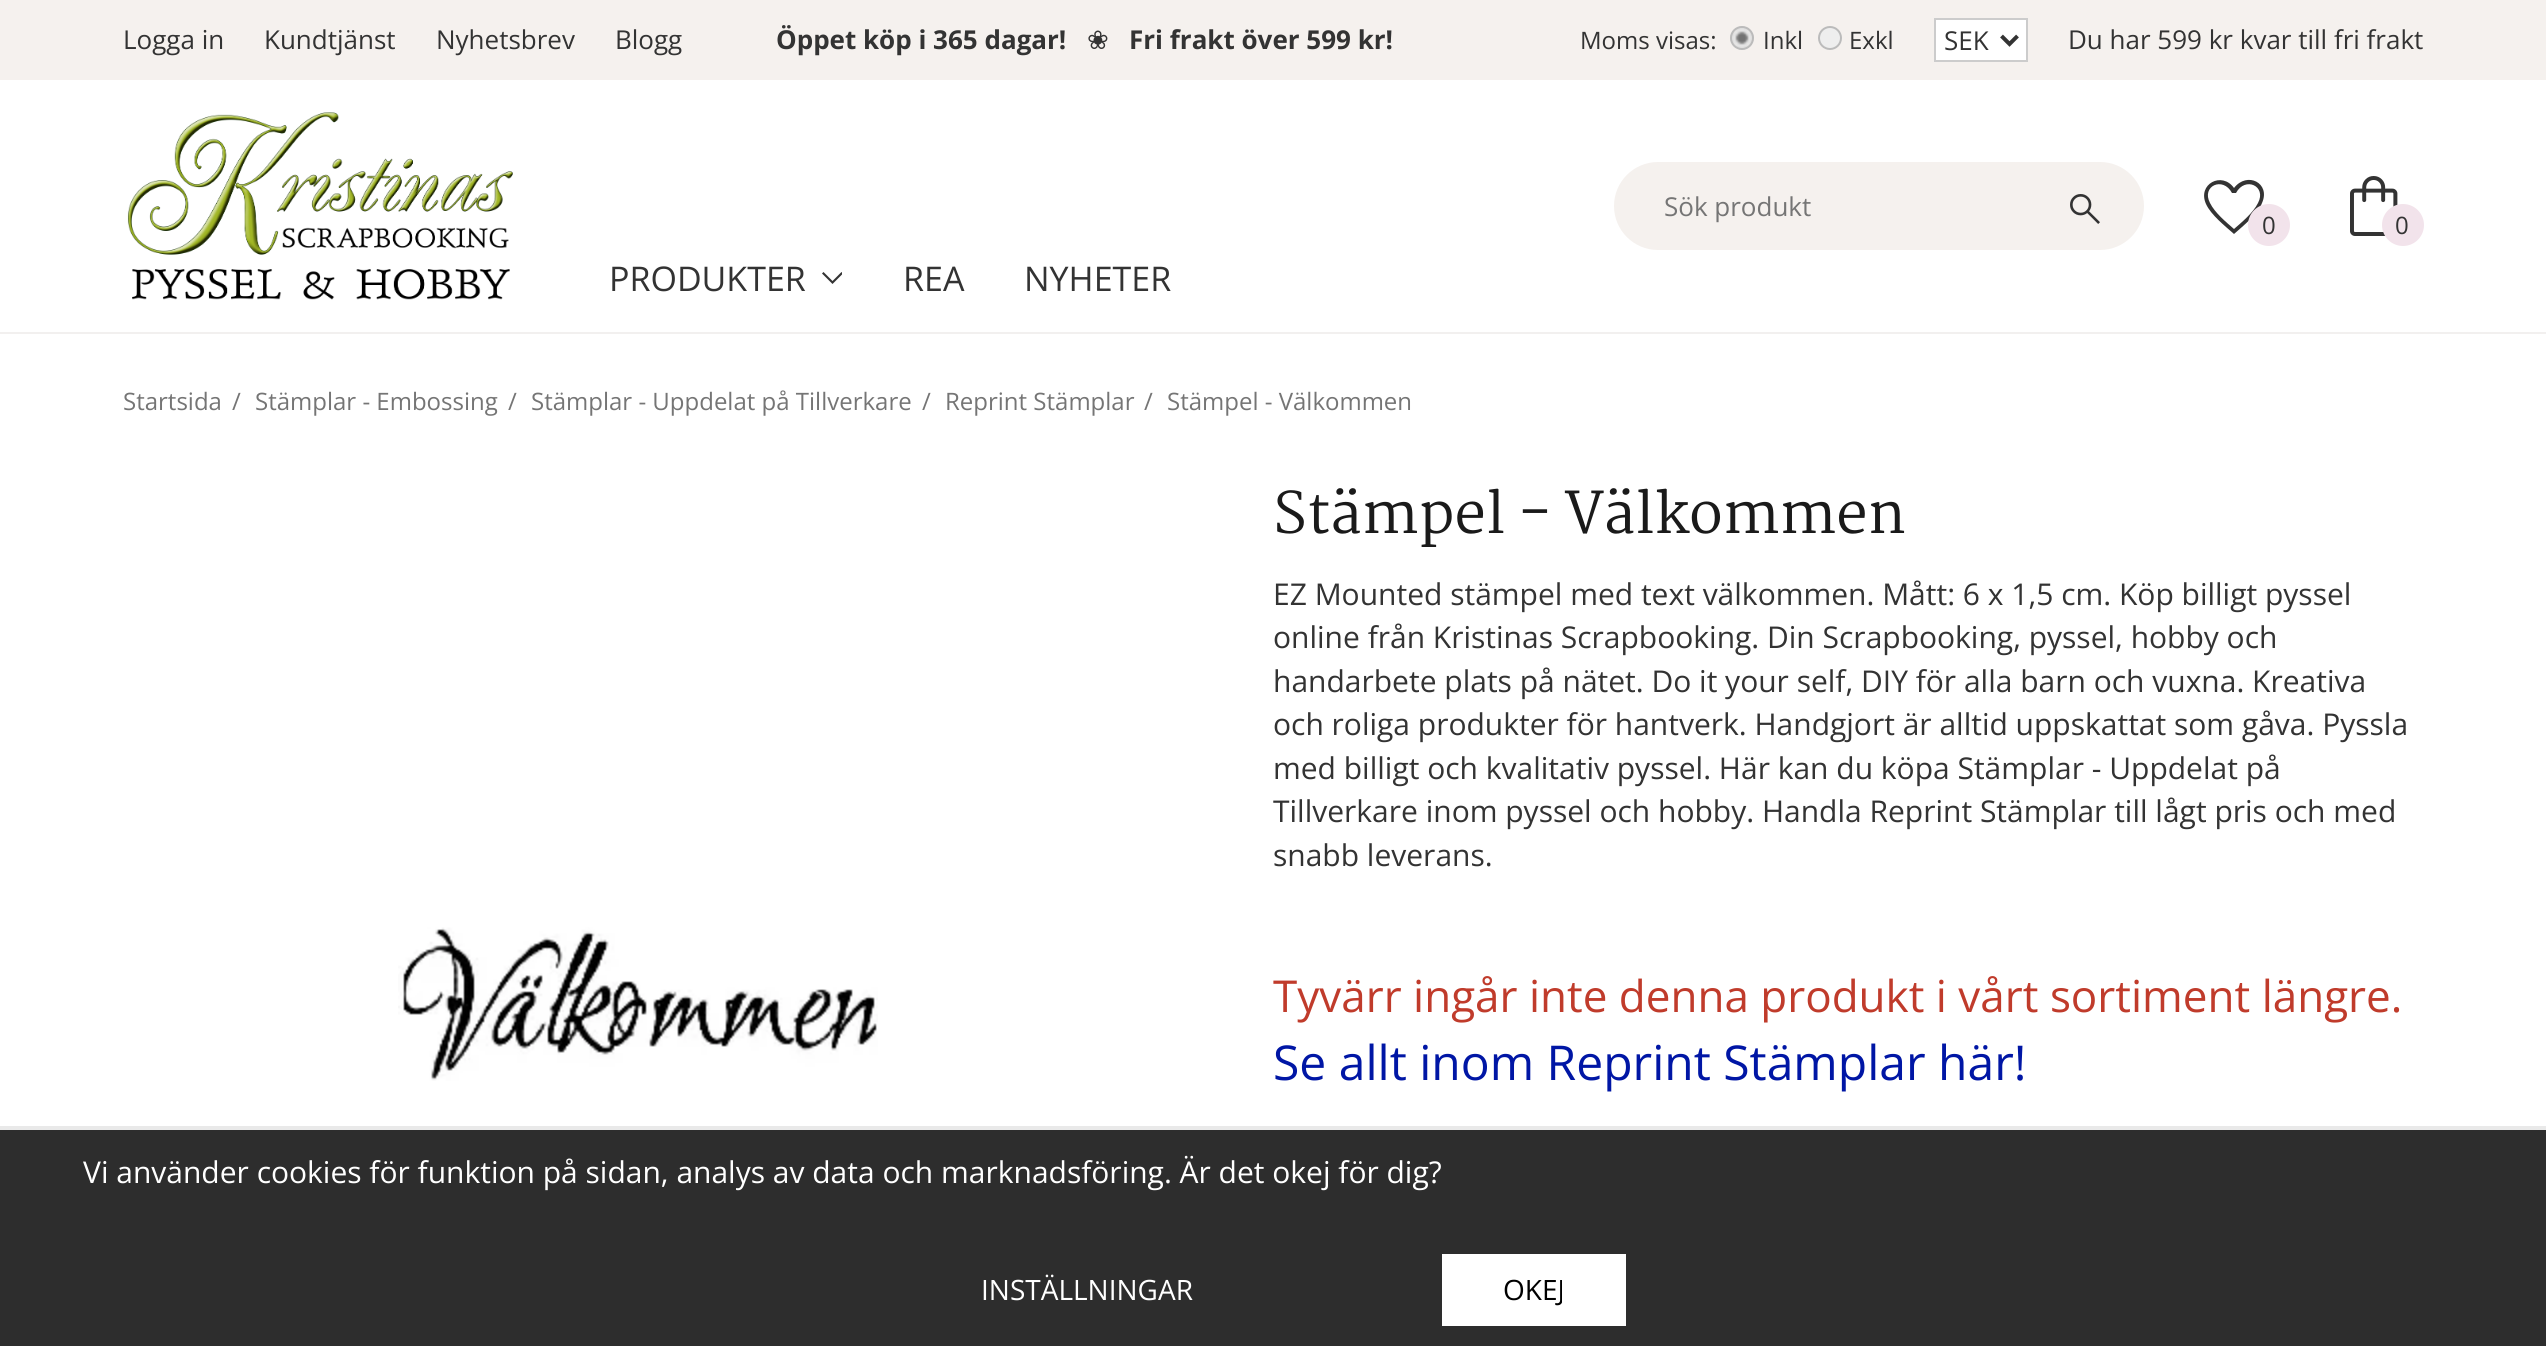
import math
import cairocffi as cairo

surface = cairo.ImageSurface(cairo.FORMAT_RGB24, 2546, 1346)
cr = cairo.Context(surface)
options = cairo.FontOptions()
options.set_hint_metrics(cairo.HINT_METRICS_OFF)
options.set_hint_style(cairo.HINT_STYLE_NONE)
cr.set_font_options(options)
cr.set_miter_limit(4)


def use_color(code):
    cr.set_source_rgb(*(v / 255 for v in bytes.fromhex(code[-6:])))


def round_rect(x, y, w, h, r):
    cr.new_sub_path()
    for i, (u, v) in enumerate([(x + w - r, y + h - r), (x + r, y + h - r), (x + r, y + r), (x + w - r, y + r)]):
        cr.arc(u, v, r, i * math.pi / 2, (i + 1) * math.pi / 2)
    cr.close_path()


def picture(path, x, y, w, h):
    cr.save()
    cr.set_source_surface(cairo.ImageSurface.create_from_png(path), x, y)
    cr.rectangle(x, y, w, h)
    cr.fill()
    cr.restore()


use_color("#ffffff")
cr.paint()
use_color("#f5f1ee")
cr.rectangle(0, 0, 2546, 80)
cr.fill()
cr.select_font_face("Open Sans")
cr.set_font_size(26)
use_color("#333333")
cr.move_to(123, 49)
cr.show_text("Logga in")
cr.move_to(264, 49)
cr.show_text("Kundtjänst")
cr.move_to(436, 49)
cr.show_text("Nyhetsbrev")
cr.move_to(615, 49)
cr.show_text("Blogg")
cr.select_font_face("Open Sans", cairo.FONT_SLANT_NORMAL, cairo.FONT_WEIGHT_BOLD)
cr.move_to(776, 49)
cr.show_text("Öppet köp i 365 dagar!")
cr.select_font_face("DejaVu Sans")
cr.move_to(1087, 49)
cr.show_text("❀")
cr.select_font_face("Open Sans", cairo.FONT_SLANT_NORMAL, cairo.FONT_WEIGHT_BOLD)
cr.move_to(1129, 49)
cr.show_text("Fri frakt över 599 kr!")
cr.select_font_face("Open Sans")
cr.set_font_size(24)
cr.move_to(1580, 49)
cr.show_text("Moms visas:")
picture("img1.png", 1730, 26, 24, 24)
cr.arc(1742, 38, 11, 0, 2 * math.pi)
use_color("#bbbbbb")
cr.stroke()
use_color("#333333")
cr.move_to(1763, 49)
cr.show_text("Inkl")
use_color("#eeeeee")
cr.new_path()
cr.arc(1830, 38, 11, 0, 2 * math.pi)
cr.fill_preserve()
use_color("#bbbbbb")
cr.stroke()
use_color("#333333")
cr.move_to(1849, 49)
cr.show_text("Exkl")
use_color("#ffffff")
cr.rectangle(1935, 19, 92, 42)
cr.fill_preserve()
use_color("#cccccc")
cr.stroke()
cr.new_path()
cr.move_to(2001.5, 36)
cr.line_to(2009.5, 44)
cr.line_to(2017.5, 36)
use_color("#333333")
cr.set_line_width(4)
cr.stroke()
cr.set_font_size(26)
cr.move_to(1944, 50)
cr.show_text("SEK")
cr.move_to(2068, 49)
cr.show_text("Du har 599 kr kvar till fri frakt")
use_color("#f2f0ef")
cr.rectangle(0, 332, 2546, 2)
cr.fill()
picture("img2.png", 127, 112, 386, 188)
use_color("#f5f1ee")
round_rect(1614, 162, 530, 88, 44)
cr.fill()
use_color("#757575")
cr.move_to(1664, 216)
cr.show_text("Sök produkt")
picture("img3.png", 2070, 194, 30, 30)
cr.set_font_size(34)
use_color("#333333")
cr.move_to(609, 291)
cr.show_text("PRODUKTER")
cr.save()
cr.rectangle(822, 272, 20, 12)
cr.clip()
cr.new_path()
cr.move_to(832.5, 284)
cr.line_to(822, 273.5)
cr.line_to(823.5, 272)
cr.line_to(832.5, 281)
cr.line_to(841.5, 272)
cr.line_to(843, 273.5)
cr.line_to(836.5, 280)
cr.close_path()
cr.fill()
cr.restore()
cr.move_to(903, 291)
cr.show_text("REA")
cr.move_to(1024, 291)
cr.show_text("NYHETER")
cr.new_path()
cr.move_to(2234, 234)
cr.curve_to(2225, 226, 2211, 215, 2206, 204)
cr.curve_to(2197, 184, 2222, 171, 2234, 188)
cr.curve_to(2247, 171, 2271, 183, 2262, 203)
cr.curve_to(2258, 214, 2243, 226, 2234, 234)
cr.close_path()
cr.move_to(2234, 229)
cr.curve_to(2242, 222, 2253, 213, 2258, 203)
cr.curve_to(2267, 186, 2245, 176, 2236, 193)
cr.line_to(2232, 193)
cr.curve_to(2223, 176, 2201, 186, 2210, 203)
cr.curve_to(2215, 213, 2226, 222, 2234, 229)
cr.close_path()
cr.fill()
use_color("#f2e3eb")
cr.arc(2269, 225, 21, 0, 2 * math.pi)
cr.fill()
cr.set_font_size(24)
use_color("#333333")
cr.move_to(2262, 234)
cr.show_text("0")
picture("img4.png", 2350, 176, 48, 60)
use_color("#f2e3eb")
cr.arc(2403, 225, 21, 0, 2 * math.pi)
cr.fill()
use_color("#333333")
cr.move_to(2395, 234)
cr.show_text("0")
use_color("#757575")
cr.move_to(123, 410)
cr.show_text("Startsida")
cr.move_to(232, 410)
cr.show_text("/")
cr.move_to(255, 410)
cr.show_text("Stämplar - Embossing")
cr.move_to(508, 410)
cr.show_text("/")
cr.move_to(531, 410)
cr.show_text("Stämplar - Uppdelat på Tillverkare")
cr.move_to(922, 410)
cr.show_text("/")
cr.move_to(945, 410)
cr.show_text("Reprint Stämplar")
cr.move_to(1144, 410)
cr.show_text("/")
cr.move_to(1167, 410)
cr.show_text("Stämpel - Välkommen")
picture("img5.png", 398, 927, 480, 154)
cr.select_font_face("Martel")
cr.set_font_size(56)
use_color("#1a1a1a")
cr.move_to(1273, 533)
cr.show_text("Stämpel - Välkommen")
cr.select_font_face("Open Sans")
cr.set_font_size(30)
use_color("#333333")
cr.move_to(1273, 605)
cr.show_text("EZ Mounted stämpel med text välkommen. Mått: 6 x 1,5 cm. Köp billigt pyssel")
cr.move_to(1273, 648)
cr.show_text("online från Kristinas Scrapbooking. Din Scrapbooking, pyssel, hobby och")
cr.move_to(1273, 692)
cr.show_text("handarbete plats på nätet. Do it your self, DIY för alla barn och vuxna. Kreativa")
cr.move_to(1273, 735)
cr.show_text("och roliga produkter för hantverk. Handgjort är alltid uppskattat som gåva. Pyssla")
cr.move_to(1273, 779)
cr.show_text("med billigt och kvalitativ pyssel. Här kan du köpa Stämplar - Uppdelat på")
cr.move_to(1273, 822)
cr.show_text("Tillverkare inom pyssel och hobby. Handla Reprint Stämplar till lågt pris och med")
cr.move_to(1273, 866)
cr.show_text("snabb leverans.")
cr.set_font_size(44)
use_color("#c03b2b")
cr.move_to(1273, 1012)
cr.show_text("Tyvärr ingår inte denna produkt i vårt sortiment längre.")
cr.set_font_size(48)
use_color("#0016a5")
cr.move_to(1273, 1080)
cr.show_text("Se allt inom Reprint Stämplar här!")
use_color("#2d2d2d")
cr.rectangle(0, 1130, 2546, 216)
cr.fill()
use_color("#e9e9e9")
cr.rectangle(0, 1126, 2546, 4)
cr.fill()
cr.set_font_size(30)
use_color("#ffffff")
cr.move_to(83, 1183)
cr.show_text("Vi använder cookies för funktion på sidan, analys av data och marknadsföring. Är det okej för dig?")
cr.set_font_size(28)
cr.move_to(981, 1300)
cr.show_text("INSTÄLLNINGAR")
cr.rectangle(1442, 1254, 184, 72)
cr.fill()
use_color("#000000")
cr.move_to(1503, 1300)
cr.show_text("OKEJ")
surface.write_to_png("result.png")
